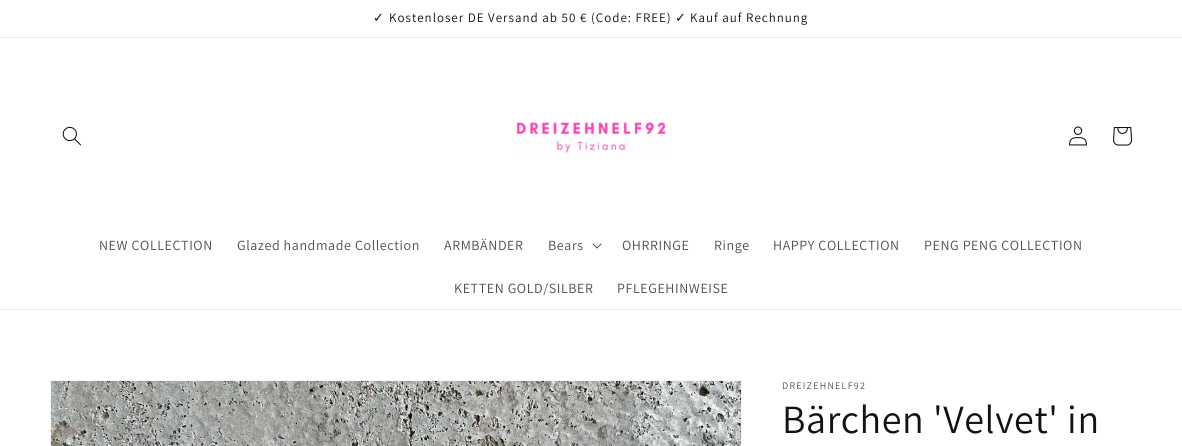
import math
import cairocffi as cairo

surface = cairo.ImageSurface(cairo.FORMAT_RGB24, 1182, 446)
cr = cairo.Context(surface)
options = cairo.FontOptions()
options.set_hint_metrics(cairo.HINT_METRICS_OFF)
options.set_hint_style(cairo.HINT_STYLE_NONE)
cr.set_font_options(options)
cr.set_miter_limit(4)


def use_color(code):
    cr.set_source_rgb(*(v / 255 for v in bytes.fromhex(code[-6:])))


def spaced_text(x, y, s, letter, word):
    cr.move_to(x, y)
    for ch in s:
        cr.show_text(ch)
        cr.rel_move_to(letter + word * (ch == ' '), 0)


def picture(path, x, y, w, h):
    cr.save()
    cr.set_source_surface(cairo.ImageSurface.create_from_png(path), x, y)
    cr.rectangle(x, y, w, h)
    cr.fill()
    cr.restore()


use_color("#ffffff")
cr.paint()
use_color("#ececec")
cr.rectangle(0, 37, 1182, 1)
cr.fill()
cr.select_font_face("DejaVu Sans")
cr.set_font_size(13)
use_color("#121212")
spaced_text(373, 22, "✓", 1, 0)
cr.select_font_face("Assistant")
spaced_text(389, 22, "Kostenloser DE Versand ab 50 € (Code: FREE)", 1, 0)
cr.select_font_face("DejaVu Sans")
spaced_text(675, 22, "✓", 1, 0)
cr.select_font_face("Assistant")
spaced_text(690, 22, "Kauf auf Rechnung", 1, 0)
use_color("#ececec")
cr.rectangle(0, 309, 1182, 1)
cr.fill()
picture("img1.png", 62, 126, 19, 20)
picture("img2.png", 514, 121, 153, 33)
picture("img3.png", 1069, 126, 18, 20)
picture("img4.png", 1113, 127, 20, 19)
cr.set_font_size(14)
use_color("#4d4d4d")
spaced_text(99, 250, "NEW COLLECTION", 0.6, 0)
spaced_text(237, 250, "Glazed handmade Collection", 0.6, 0)
spaced_text(444, 250, "ARMBÄNDER", 0.6, 0)
spaced_text(548, 250, "Bears", 0.6, 0)
picture("img5.png", 592, 243, 10, 6)
spaced_text(622, 250, "OHRRINGE", 0.6, 0)
spaced_text(714, 250, "Ringe", 0.6, 0)
spaced_text(773, 250, "HAPPY COLLECTION", 0.6, 0)
spaced_text(924, 250, "PENG PENG COLLECTION", 0.6, 0)
spaced_text(454, 293, "KETTEN GOLD/SILBER", 0.6, 0)
spaced_text(617, 293, "PFLEGEHINWEISE", 0.6, 0)
cr.rectangle(50.5, 380.5, 691, 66)
use_color("#f6f6f6")
cr.set_line_width(1)
cr.stroke()
picture("img6.png", 51, 381, 690, 65)
cr.set_font_size(10)
use_color("#4d4d4d")
spaced_text(782, 389, "DREIZEHNELF92", 1.25, 0)
cr.set_font_size(40)
use_color("#121212")
spaced_text(782, 433, "Bärchen 'Velvet' in", 0.6, 0)
surface.write_to_png("result.png")
